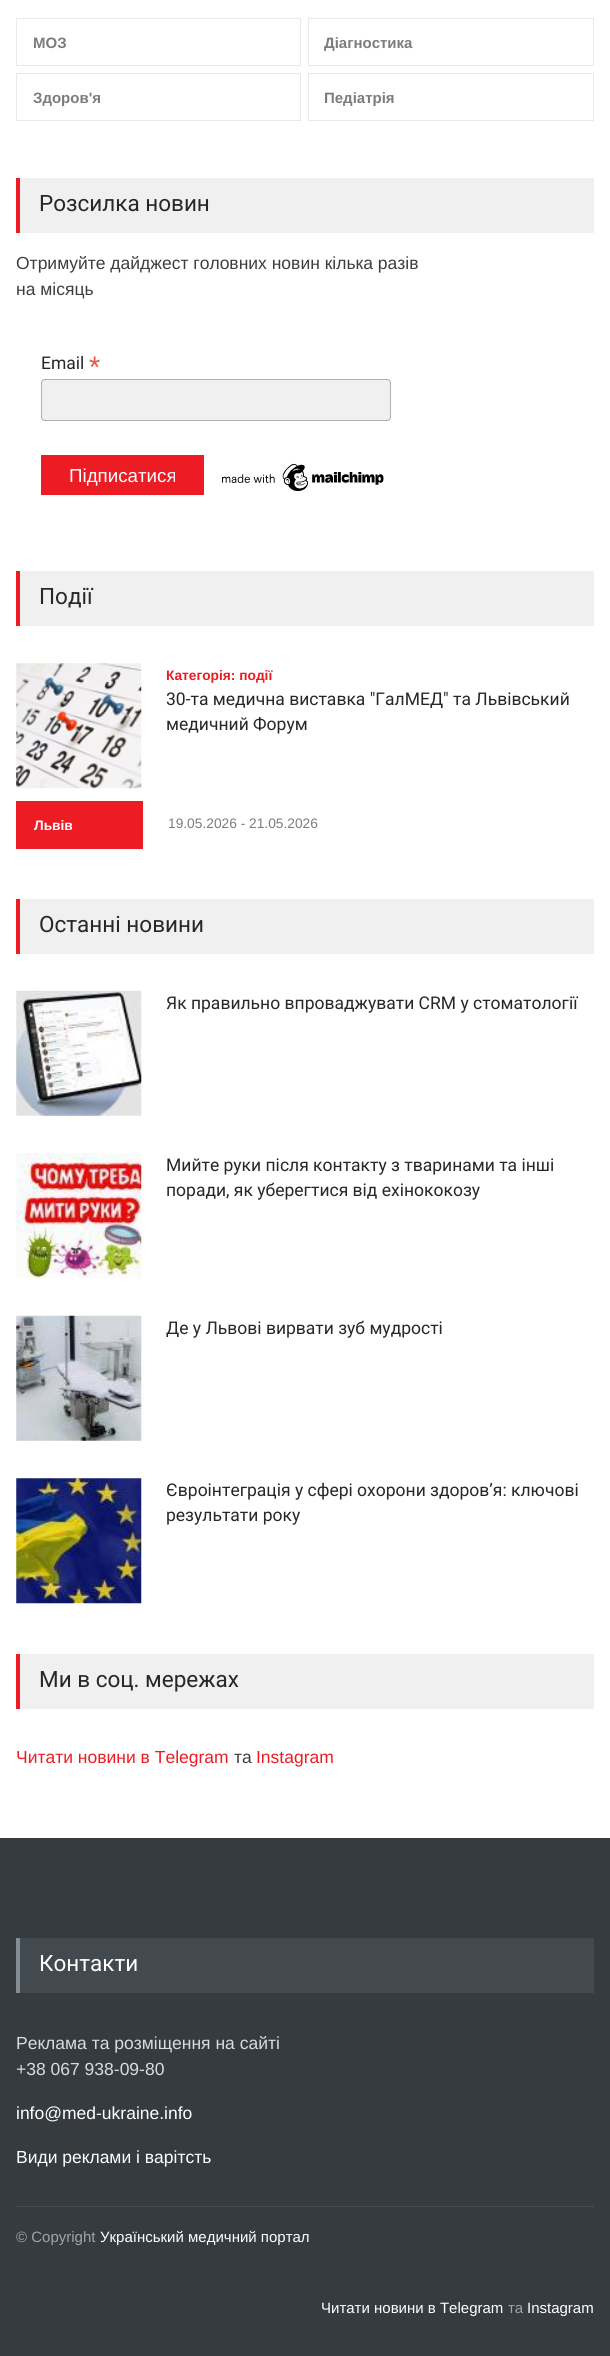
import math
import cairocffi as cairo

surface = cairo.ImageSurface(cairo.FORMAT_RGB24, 610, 2356)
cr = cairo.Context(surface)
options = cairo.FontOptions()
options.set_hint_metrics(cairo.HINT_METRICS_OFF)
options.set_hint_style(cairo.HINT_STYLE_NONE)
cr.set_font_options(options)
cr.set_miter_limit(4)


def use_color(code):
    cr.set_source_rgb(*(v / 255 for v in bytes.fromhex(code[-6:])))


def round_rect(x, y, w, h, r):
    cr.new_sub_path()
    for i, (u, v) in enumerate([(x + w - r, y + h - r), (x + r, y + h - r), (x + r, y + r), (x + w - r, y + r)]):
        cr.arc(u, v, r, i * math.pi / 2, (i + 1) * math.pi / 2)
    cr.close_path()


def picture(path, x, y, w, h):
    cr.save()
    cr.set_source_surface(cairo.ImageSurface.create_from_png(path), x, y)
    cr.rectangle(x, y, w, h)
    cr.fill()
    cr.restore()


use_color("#ffffff")
cr.paint()
cr.rectangle(16.5, 18.5, 284, 47)
use_color("#e9e9e9")
cr.set_line_width(1)
cr.stroke()
cr.select_font_face("Liberation Sans", cairo.FONT_SLANT_NORMAL, cairo.FONT_WEIGHT_BOLD)
cr.set_font_size(15)
use_color("#7c7c7c")
cr.move_to(33, 48)
cr.show_text("МОЗ")
cr.rectangle(308.5, 18.5, 285, 47)
use_color("#e9e9e9")
cr.stroke()
use_color("#7c7c7c")
cr.move_to(324, 48)
cr.show_text("Діагностика")
cr.rectangle(16.5, 73.5, 284, 47)
use_color("#e9e9e9")
cr.stroke()
use_color("#7c7c7c")
cr.move_to(33, 103)
cr.show_text("Здоров'я")
cr.rectangle(308.5, 73.5, 285, 47)
use_color("#e9e9e9")
cr.stroke()
use_color("#7c7c7c")
cr.move_to(324, 103)
cr.show_text("Педіатрія")
use_color("#f0f0f0")
cr.rectangle(20, 178, 574, 55)
cr.fill()
use_color("#ed1c24")
cr.rectangle(16, 178, 4, 55)
cr.fill()
cr.select_font_face("Roboto")
cr.set_font_size(22.5)
use_color("#25282a")
cr.move_to(39, 211)
cr.show_text("Розсилка новин")
cr.select_font_face("Liberation Sans")
cr.set_font_size(17.5)
use_color("#3e3e3e")
cr.move_to(16, 269)
cr.show_text("Отримуйте дайджест головних новин кілька разів")
cr.move_to(16, 295)
cr.show_text("на місяць")
cr.select_font_face("Roboto")
use_color("#25282a")
cr.move_to(41, 369)
cr.show_text("Email")
cr.set_font_size(26)
use_color("#e85c41")
cr.move_to(89, 375)
cr.show_text("*")
use_color("#f0f0f0")
round_rect(41.5, 379.5, 349, 41, 3.5)
cr.fill_preserve()
use_color("#abb0b2")
cr.stroke()
use_color("#ed1c24")
cr.rectangle(41, 455, 163, 40)
cr.fill()
cr.select_font_face("Liberation Sans")
cr.set_font_size(18.75)
use_color("#ffffff")
cr.move_to(69, 482)
cr.show_text("Підписатися")
picture("img1.png", 222, 463, 162, 28)
use_color("#f0f0f0")
cr.rectangle(20, 571, 574, 55)
cr.fill()
use_color("#ed1c24")
cr.rectangle(16, 571, 4, 55)
cr.fill()
cr.select_font_face("Roboto")
cr.set_font_size(22.5)
use_color("#25282a")
cr.move_to(39, 604)
cr.show_text("Події")
picture("img2.png", 16, 663, 126, 126)
cr.select_font_face("Liberation Sans", cairo.FONT_SLANT_NORMAL, cairo.FONT_WEIGHT_BOLD)
cr.set_font_size(13.75)
use_color("#ed1c24")
cr.move_to(166, 680)
cr.show_text("Категорія: події")
cr.select_font_face("Roboto")
cr.set_font_size(17.5)
use_color("#25282a")
cr.move_to(166, 705)
cr.show_text("30-та медична виставка \"ГалМЕД\" та Львівський")
cr.move_to(166, 730)
cr.show_text("медичний Форум")
use_color("#ed1c24")
cr.rectangle(16, 801, 127, 48)
cr.fill()
cr.select_font_face("Liberation Sans", cairo.FONT_SLANT_NORMAL, cairo.FONT_WEIGHT_BOLD)
cr.set_font_size(13.75)
use_color("#ffffff")
cr.move_to(34, 830)
cr.show_text("Львів")
cr.select_font_face("Liberation Sans")
use_color("#7c7c7c")
cr.move_to(168, 828)
cr.show_text("19.05.2026 - 21.05.2026")
use_color("#f0f0f0")
cr.rectangle(20, 899, 574, 55)
cr.fill()
use_color("#ed1c24")
cr.rectangle(16, 899, 4, 55)
cr.fill()
cr.select_font_face("Roboto")
cr.set_font_size(22.5)
use_color("#25282a")
cr.move_to(39, 932)
cr.show_text("Останні новини")
picture("img3.png", 16, 990, 126, 126)
cr.set_font_size(17.5)
cr.move_to(166, 1009)
cr.show_text("Як правильно впроваджувати CRM у стоматології")
picture("img4.png", 16, 1153, 126, 126)
cr.move_to(166, 1171)
cr.show_text("Мийте руки після контакту з тваринами та інші")
cr.move_to(166, 1196)
cr.show_text("поради, як уберегтися від ехінококозу")
picture("img5.png", 16, 1315, 126, 126)
cr.move_to(166, 1334)
cr.show_text("Де у Львові вирвати зуб мудрості")
picture("img6.png", 16, 1478, 126, 126)
cr.move_to(166, 1496)
cr.show_text("Євроінтеграція у сфері охорони здоров’я: ключові")
cr.move_to(166, 1521)
cr.show_text("результати року")
use_color("#f0f0f0")
cr.rectangle(20, 1654, 574, 55)
cr.fill()
use_color("#ed1c24")
cr.rectangle(16, 1654, 4, 55)
cr.fill()
cr.set_font_size(22.5)
use_color("#25282a")
cr.move_to(39, 1687)
cr.show_text("Ми в соц. мережах")
cr.select_font_face("Liberation Sans")
cr.set_font_size(17.5)
use_color("#ed1c24")
cr.move_to(16, 1763)
cr.show_text("Читати новини в Telegram")
use_color("#3e3e3e")
cr.move_to(234, 1763)
cr.show_text("та")
use_color("#ed1c24")
cr.move_to(256, 1763)
cr.show_text("Instagram")
use_color("#363b40")
cr.rectangle(0, 1838, 610, 518)
cr.fill()
use_color("#42494f")
cr.rectangle(20, 1938, 574, 55)
cr.fill()
use_color("#858d94")
cr.rectangle(16, 1938, 4, 55)
cr.fill()
cr.select_font_face("Roboto")
cr.set_font_size(22.5)
use_color("#ffffff")
cr.move_to(39, 1971)
cr.show_text("Контакти")
cr.select_font_face("Liberation Sans")
cr.set_font_size(17.5)
use_color("#d7dce0")
cr.move_to(16, 2049)
cr.show_text("Реклама та розміщення на сайті")
cr.move_to(16, 2075)
cr.show_text("+38 067 938-09-80")
use_color("#ffffff")
cr.move_to(16, 2119)
cr.show_text("info@med-ukraine.info")
cr.move_to(16, 2163)
cr.show_text("Види реклами і варітсть")
use_color("#464d53")
cr.rectangle(16, 2206, 578, 1)
cr.fill()
cr.set_font_size(15)
use_color("#9da4ab")
cr.move_to(16, 2242)
cr.show_text("© Copyright")
use_color("#ffffff")
cr.move_to(100, 2242)
cr.show_text("Український медичний портал")
cr.move_to(321, 2313)
cr.show_text("Читати новини в Telegram")
use_color("#9da4ab")
cr.move_to(508, 2313)
cr.show_text("та")
use_color("#ffffff")
cr.move_to(527, 2313)
cr.show_text("Instagram")
surface.write_to_png("result.png")
